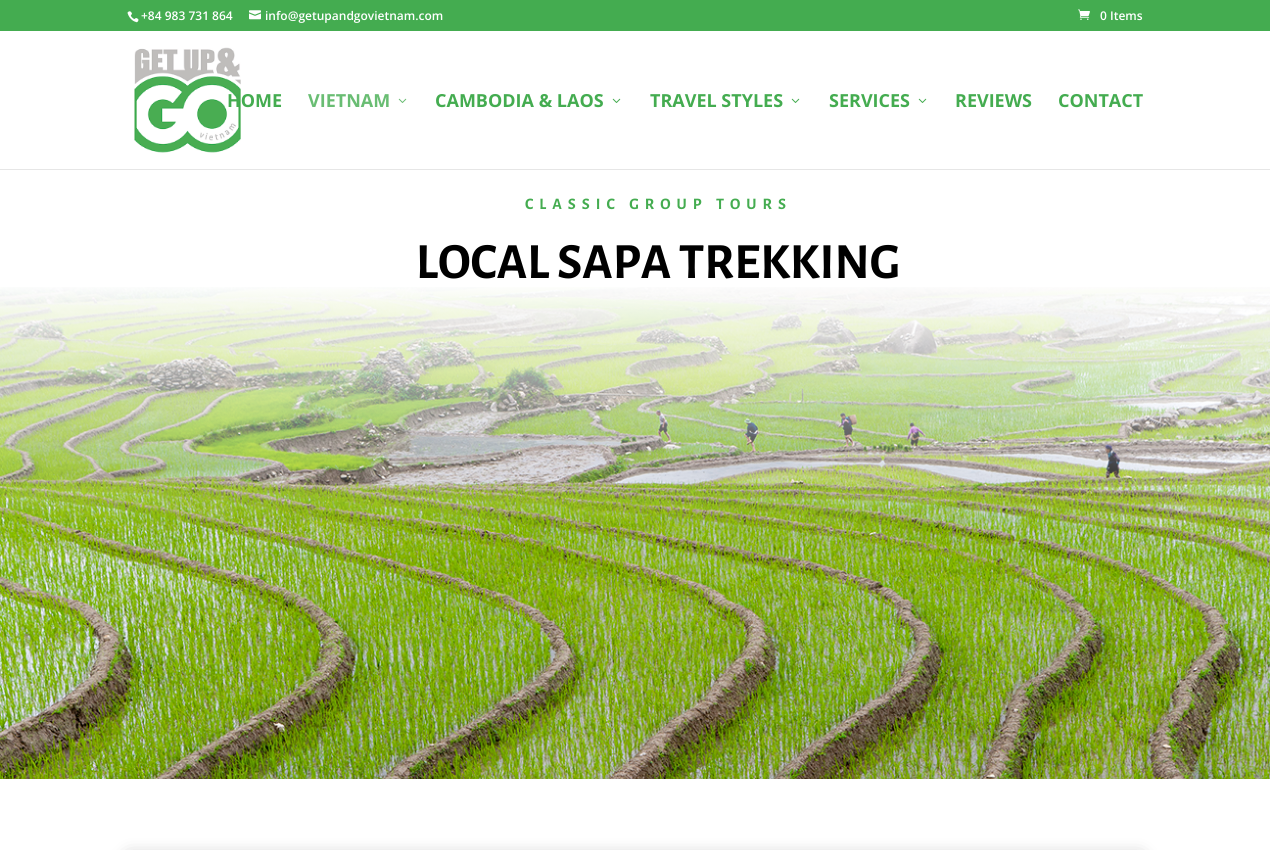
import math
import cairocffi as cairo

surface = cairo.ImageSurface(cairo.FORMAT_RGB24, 1270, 850)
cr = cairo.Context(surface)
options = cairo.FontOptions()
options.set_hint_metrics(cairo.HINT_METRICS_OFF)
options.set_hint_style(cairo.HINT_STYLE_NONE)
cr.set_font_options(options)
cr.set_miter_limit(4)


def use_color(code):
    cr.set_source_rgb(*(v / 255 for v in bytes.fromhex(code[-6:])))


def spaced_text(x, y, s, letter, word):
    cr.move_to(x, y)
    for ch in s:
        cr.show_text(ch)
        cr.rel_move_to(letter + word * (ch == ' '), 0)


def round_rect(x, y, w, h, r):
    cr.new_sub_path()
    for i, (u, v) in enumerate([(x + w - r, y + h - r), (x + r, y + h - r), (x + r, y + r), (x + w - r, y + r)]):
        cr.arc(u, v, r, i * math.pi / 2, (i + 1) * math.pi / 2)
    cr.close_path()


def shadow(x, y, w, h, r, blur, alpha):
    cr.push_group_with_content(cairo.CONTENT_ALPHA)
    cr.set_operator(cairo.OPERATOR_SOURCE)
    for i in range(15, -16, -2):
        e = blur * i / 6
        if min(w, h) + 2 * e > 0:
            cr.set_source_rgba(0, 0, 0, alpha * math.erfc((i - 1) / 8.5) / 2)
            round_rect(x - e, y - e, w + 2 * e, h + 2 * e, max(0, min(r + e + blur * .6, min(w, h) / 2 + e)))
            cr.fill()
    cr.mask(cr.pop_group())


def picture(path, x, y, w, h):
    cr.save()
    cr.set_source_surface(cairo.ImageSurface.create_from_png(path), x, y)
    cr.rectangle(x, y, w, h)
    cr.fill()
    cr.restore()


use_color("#ffffff")
cr.paint()
use_color("#44ac50")
cr.rectangle(0, 0, 1270, 31)
cr.fill()
picture("img1.png", 127, 11, 12, 12)
cr.select_font_face("Open Sans SemiBold")
cr.set_font_size(12)
use_color("#ffffff")
cr.move_to(141, 20)
cr.show_text("+84 983 731 864")
picture("img2.png", 249, 10, 12, 10)
cr.move_to(265, 20)
cr.show_text("info@getupandgovietnam.com")
picture("img3.png", 1078, 9, 12, 11)
cr.move_to(1100, 20)
cr.show_text("0 Items")
use_color("#e6e6e6")
cr.rectangle(0, 169, 1270, 1)
cr.fill()
picture("img4.png", 134, 47, 107, 106)
cr.select_font_face("Open Sans", cairo.FONT_SLANT_NORMAL, cairo.FONT_WEIGHT_BOLD)
cr.set_font_size(18)
use_color("#44ac50")
cr.move_to(227, 107)
cr.show_text("HOME")
use_color("#69bd73")
cr.move_to(308, 107)
cr.show_text("VIETNAM")
picture("img5.png", 398, 98, 9, 5)
use_color("#44ac50")
cr.move_to(435, 107)
cr.show_text("CAMBODIA & LAOS")
picture("img6.png", 612, 98, 9, 5)
cr.move_to(650, 107)
cr.show_text("TRAVEL STYLES")
picture("img6.png", 791, 98, 9, 5)
cr.move_to(829, 107)
cr.show_text("SERVICES")
picture("img6.png", 918, 98, 9, 5)
cr.move_to(955, 107)
cr.show_text("REVIEWS")
cr.move_to(1058, 107)
cr.show_text("CONTACT")
picture("img7.png", 0, 287, 1270, 492)
cr.select_font_face("Alegreya Sans", cairo.FONT_SLANT_NORMAL, cairo.FONT_WEIGHT_BOLD)
cr.set_font_size(16)
spaced_text(525, 209, "CLASSIC GROUP TOURS", 6, 0)
cr.set_font_size(50.75)
use_color("#000000")
cr.move_to(416, 278)
cr.show_text("LOCAL SAPA TREKKING")
use_color("#000000")
shadow(127, 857, 1016, 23, 3, 9, 0.3)
surface.write_to_png("result.png")
